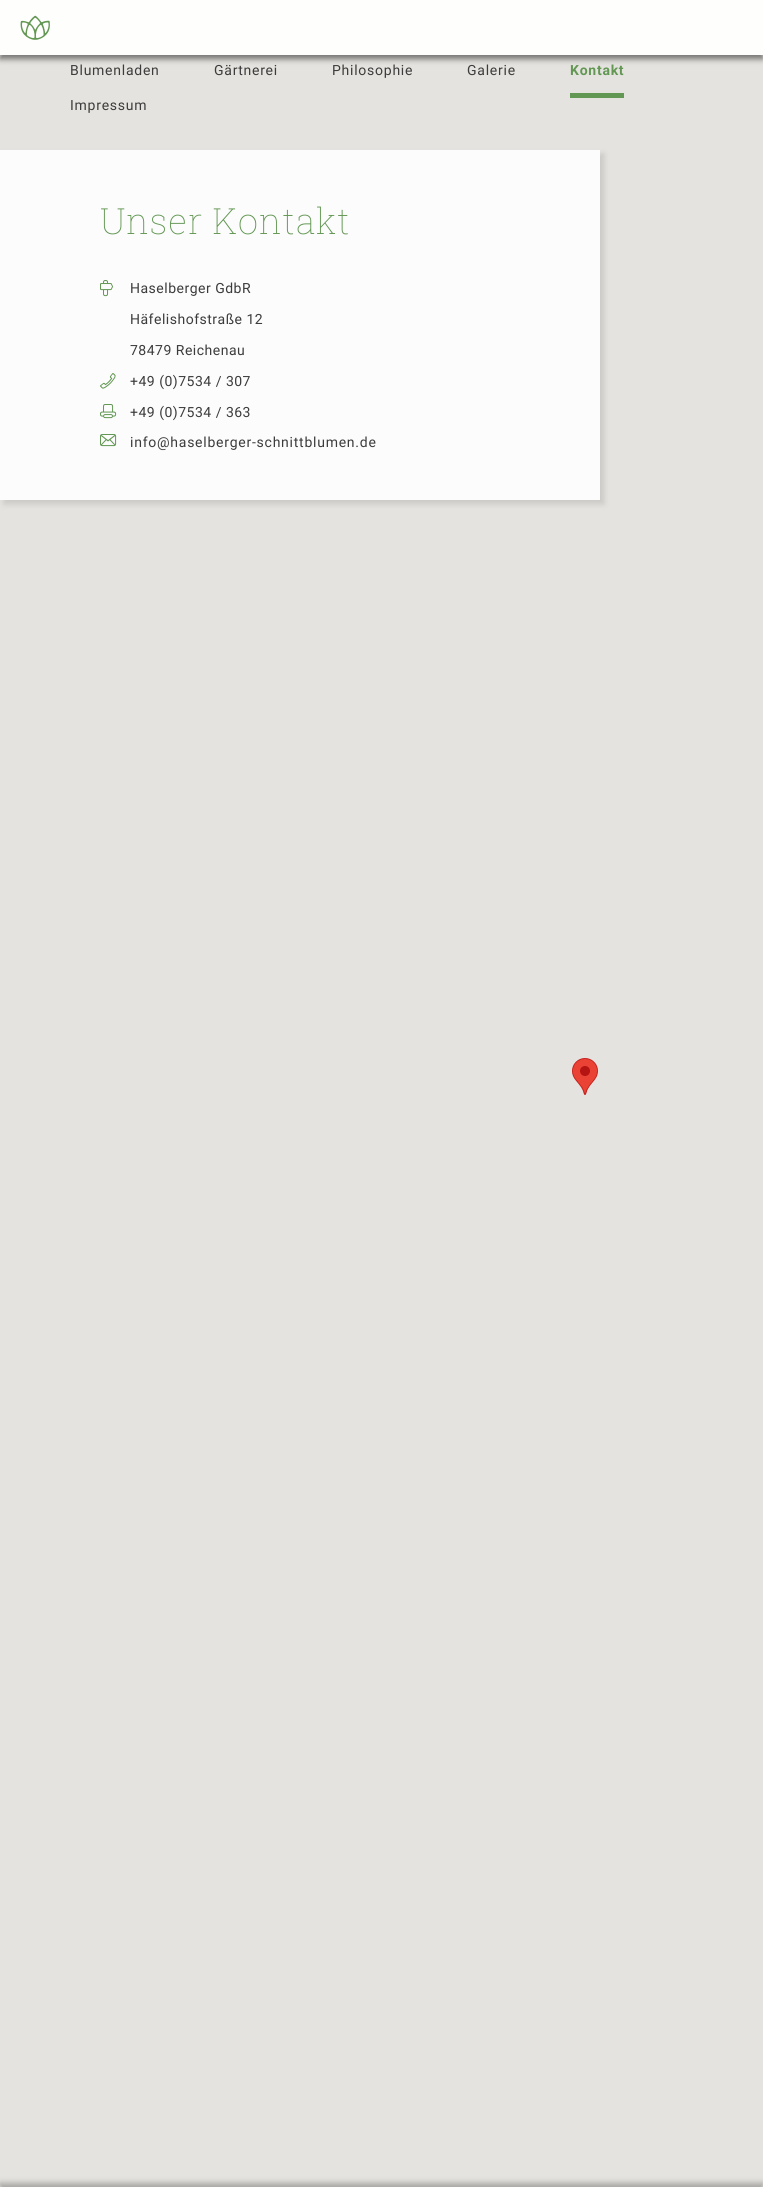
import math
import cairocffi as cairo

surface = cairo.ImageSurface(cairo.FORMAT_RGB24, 763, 2187)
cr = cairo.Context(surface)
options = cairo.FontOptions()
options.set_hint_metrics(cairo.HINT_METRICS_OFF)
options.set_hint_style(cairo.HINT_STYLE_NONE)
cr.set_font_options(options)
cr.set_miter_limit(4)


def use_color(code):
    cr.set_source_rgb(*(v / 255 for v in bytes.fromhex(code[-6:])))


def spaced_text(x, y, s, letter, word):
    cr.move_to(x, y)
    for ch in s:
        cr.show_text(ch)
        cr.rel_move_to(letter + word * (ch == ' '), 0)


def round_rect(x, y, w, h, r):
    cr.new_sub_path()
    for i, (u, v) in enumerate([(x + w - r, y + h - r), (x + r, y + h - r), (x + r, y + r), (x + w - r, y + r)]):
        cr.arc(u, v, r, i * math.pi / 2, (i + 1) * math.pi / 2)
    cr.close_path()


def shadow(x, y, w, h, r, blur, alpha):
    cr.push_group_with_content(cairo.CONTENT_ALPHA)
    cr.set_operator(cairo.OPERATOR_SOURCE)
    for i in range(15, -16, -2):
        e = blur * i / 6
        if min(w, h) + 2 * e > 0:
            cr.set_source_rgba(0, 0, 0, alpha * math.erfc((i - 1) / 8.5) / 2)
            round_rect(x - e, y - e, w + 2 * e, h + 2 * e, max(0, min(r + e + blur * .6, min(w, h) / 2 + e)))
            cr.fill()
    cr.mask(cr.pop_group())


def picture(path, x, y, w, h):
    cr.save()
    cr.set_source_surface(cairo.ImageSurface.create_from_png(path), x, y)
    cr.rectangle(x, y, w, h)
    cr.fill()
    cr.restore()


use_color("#e5e3df")
cr.paint()
use_color("#000000")
shadow(0, 4, 763, 55, 0, 3, 0.5)
use_color("#fefefd")
cr.rectangle(0, 0, 763, 55)
cr.fill()
picture("img1.png", 20, 15, 30, 25)
cr.select_font_face("Roboto")
cr.set_font_size(14)
use_color("#3c3c3c")
spaced_text(70, 75, "Blumenladen", 0.75, 0)
spaced_text(214, 75, "Gärtnerei", 0.75, 0)
spaced_text(332, 75, "Philosophie", 0.75, 0)
spaced_text(467, 75, "Galerie", 0.75, 0)
cr.select_font_face("Roboto", cairo.FONT_SLANT_NORMAL, cairo.FONT_WEIGHT_BOLD)
use_color("#639754")
spaced_text(570, 75, "Kontakt", 0.75, 0)
cr.rectangle(570, 93, 54, 5)
cr.fill()
cr.select_font_face("Roboto")
use_color("#3c3c3c")
spaced_text(70, 110, "Impressum", 0.75, 0)
use_color("#969696")
shadow(4, 154, 600, 350, 0, 3, 0.35)
use_color("#fcfcfc")
cr.rectangle(0, 150, 600, 350)
cr.fill()
cr.select_font_face("Roboto Slab Thin")
cr.set_font_size(36)
use_color("#639754")
spaced_text(100, 234, "Unser Kontakt", 0.75, 0)
picture("img2.png", 100, 280, 13, 17)
cr.select_font_face("Roboto")
cr.set_font_size(14)
use_color("#3c3c3c")
spaced_text(130, 293, "Haselberger GdbR", 0.5, 0)
spaced_text(130, 324, "Häfelishofstraße 12", 0.5, 0)
spaced_text(130, 355, "78479 Reichenau", 0.5, 0)
picture("img3.png", 100, 373, 16, 16)
spaced_text(130, 386, "+49 (0)7534 / 307", 0.5, 0)
picture("img4.png", 100, 404, 17, 15)
spaced_text(130, 417, "+49 (0)7534 / 363", 0.5, 0)
picture("img5.png", 100, 434, 17, 13)
spaced_text(130, 447, "info@haselberger-schnittblumen.de", 0.75, 0)
picture("img6.png", 572, 1058, 26, 37)
use_color("#323232")
shadow(0, 2183, 763, 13, 0, 3, 0.35)
surface.write_to_png("result.png")
